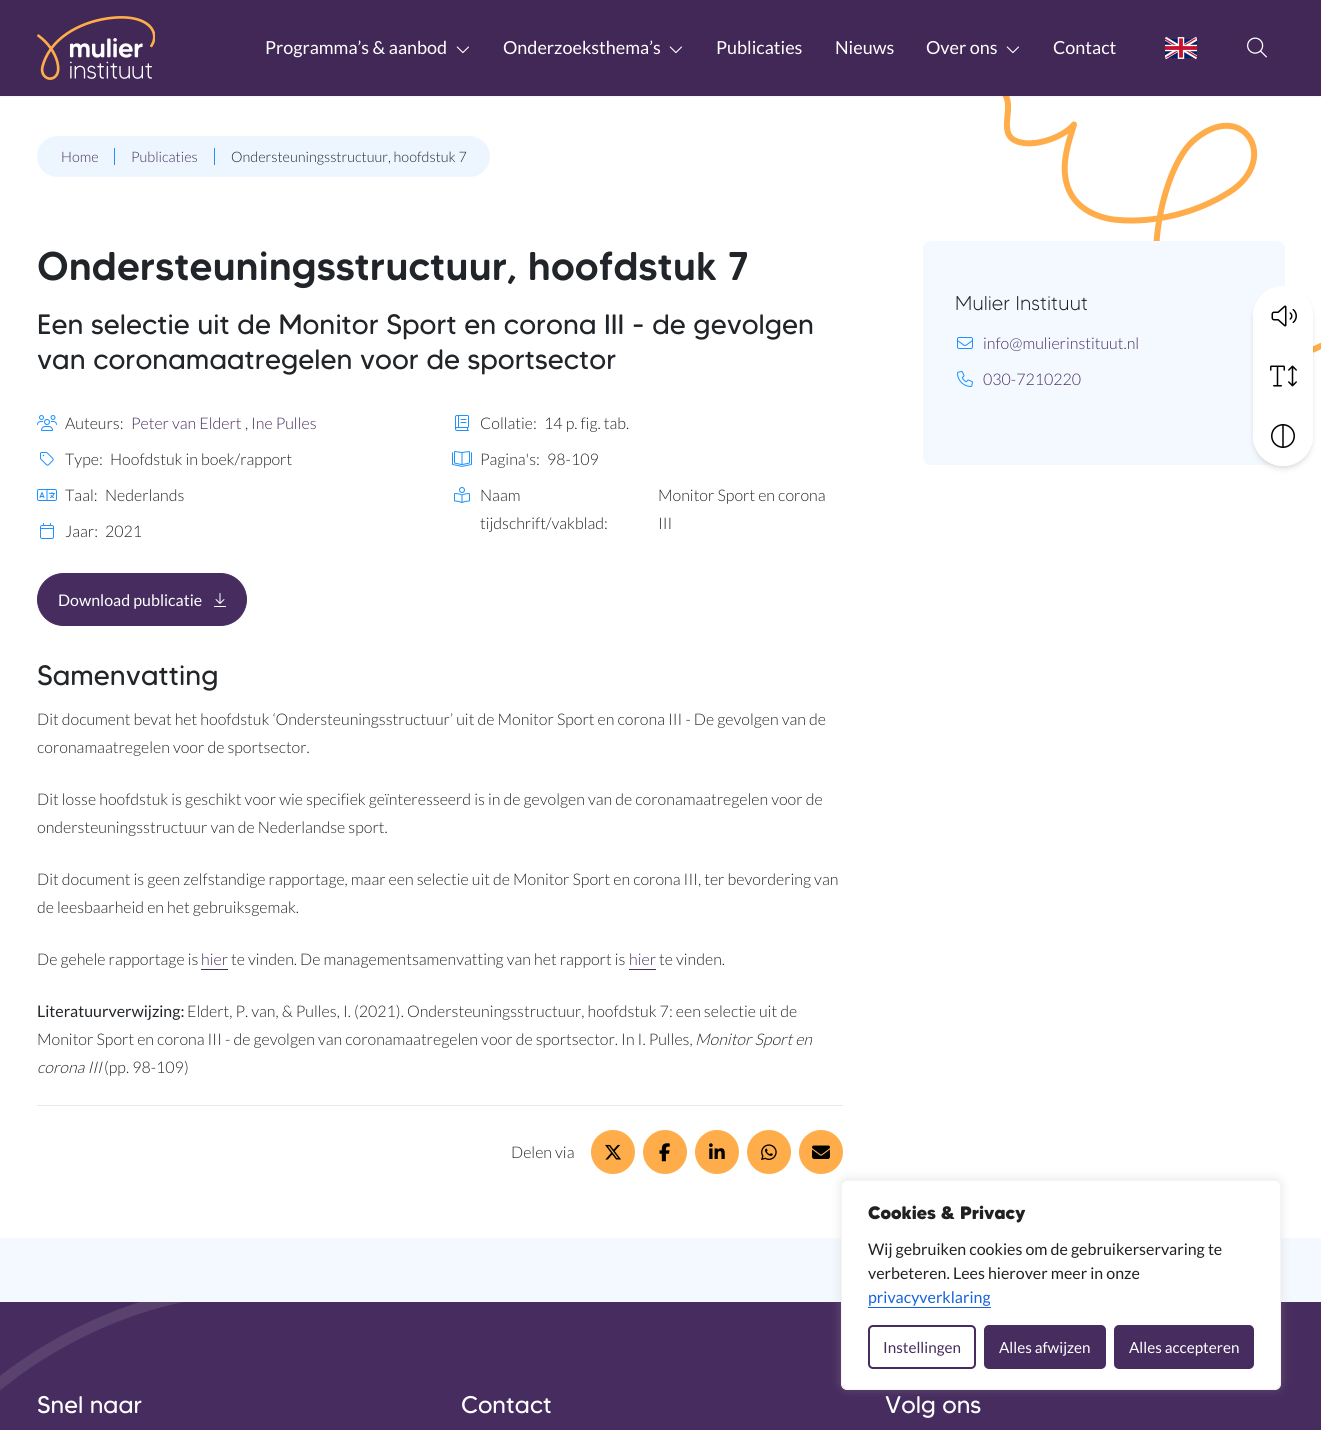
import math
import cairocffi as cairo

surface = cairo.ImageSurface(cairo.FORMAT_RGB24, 1321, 1430)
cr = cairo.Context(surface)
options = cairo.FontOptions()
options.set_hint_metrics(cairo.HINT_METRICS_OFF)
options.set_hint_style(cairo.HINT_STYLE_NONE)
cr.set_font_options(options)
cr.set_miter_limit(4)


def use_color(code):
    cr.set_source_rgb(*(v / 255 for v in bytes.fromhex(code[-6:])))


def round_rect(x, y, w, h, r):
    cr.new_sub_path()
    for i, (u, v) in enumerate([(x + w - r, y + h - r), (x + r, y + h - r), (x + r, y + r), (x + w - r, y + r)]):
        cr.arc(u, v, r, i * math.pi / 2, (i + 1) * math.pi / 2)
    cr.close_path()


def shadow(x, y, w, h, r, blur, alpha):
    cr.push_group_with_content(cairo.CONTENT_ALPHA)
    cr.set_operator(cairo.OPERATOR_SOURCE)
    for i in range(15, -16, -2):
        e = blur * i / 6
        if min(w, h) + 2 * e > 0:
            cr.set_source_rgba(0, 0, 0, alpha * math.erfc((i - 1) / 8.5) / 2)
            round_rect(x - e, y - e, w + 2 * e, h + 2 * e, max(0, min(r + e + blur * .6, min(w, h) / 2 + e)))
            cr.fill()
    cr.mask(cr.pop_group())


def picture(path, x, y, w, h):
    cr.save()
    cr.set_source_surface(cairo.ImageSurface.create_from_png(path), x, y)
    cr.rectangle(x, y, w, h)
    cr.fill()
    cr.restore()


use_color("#f4f9ff")
cr.paint()
use_color("#ffffff")
cr.rectangle(0, 96, 1321, 1142)
cr.fill()
cr.new_path()
cr.move_to(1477, 204.5)
cr.curve_to(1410.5, 286.5, 1306.5, 401.5, 1198, 349.5)
cr.curve_to(1130, 316.5, 1156.5, 173.5, 1193, 141)
cr.curve_to(1242.5, 97, 1281.5, 159, 1229.5, 192)
cr.curve_to(1196, 213.5, 1153, 223, 1118.5, 220)
cr.curve_to(1109.5, 219.5, 1069, 214.5, 1065, 174.5)
cr.curve_to(1063, 156.5, 1070.5, 136.5, 1074, 124.5)
cr.curve_to(1062, 138.5, 1030, 149, 1014, 140)
cr.curve_to(998, 130.5, 1016, 105, 1003, 92)
cr.curve_to(977, 66, 898, 80, 843.5, 65)
use_color("#ffad4a")
cr.set_line_width(6)
cr.set_line_cap(cairo.LINE_CAP_ROUND)
cr.set_line_join(cairo.LINE_JOIN_ROUND)
cr.stroke()
use_color("#000000")
shadow(0, 1, 1321, 96, 0, 1, 0.05)
use_color("#412857")
cr.rectangle(0, 0, 1321, 96)
cr.fill()
picture("img1.png", 37, 16, 118, 64)
cr.select_font_face("Lato")
cr.set_font_size(18)
use_color("#ffffff")
cr.move_to(265, 54)
cr.show_text("Programma’s & aanbod")
picture("img2.png", 456, 46, 13, 8)
cr.move_to(503, 54)
cr.show_text("Onderzoeksthema’s")
picture("img2.png", 669, 46, 13, 8)
cr.move_to(716, 54)
cr.show_text("Publicaties")
cr.move_to(835, 54)
cr.show_text("Nieuws")
cr.move_to(926, 54)
cr.show_text("Over ons")
picture("img2.png", 1006, 46, 13, 8)
cr.move_to(1053, 54)
cr.show_text("Contact")
picture("img3.png", 1165, 36, 32, 24)
picture("img4.png", 1247, 37, 20, 21)
use_color("#edf6ff")
round_rect(37, 136, 453, 41, 20.5)
cr.fill()
cr.select_font_face("Lato Light")
cr.set_font_size(14.4)
use_color("#472c5f")
cr.move_to(61, 162)
cr.show_text("Home")
use_color("#1e92ff")
cr.rectangle(114, 148, 1, 17)
cr.fill()
use_color("#472c5f")
cr.move_to(131, 162)
cr.show_text("Publicaties")
use_color("#1e92ff")
cr.rectangle(214, 148, 1, 17)
cr.fill()
use_color("#212529")
cr.move_to(231, 162)
cr.show_text("Ondersteuningsstructuur, hoofdstuk 7")
cr.select_font_face("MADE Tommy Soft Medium")
cr.set_font_size(40)
cr.move_to(37, 280)
cr.show_text("Ondersteuningsstructuur, hoofdstuk 7")
cr.select_font_face("MADE Tommy Soft")
cr.set_font_size(28)
cr.move_to(37, 334)
cr.show_text("Een selectie uit de Monitor Sport en corona III - de gevolgen")
cr.move_to(37, 369)
cr.show_text("van coronamaatregelen voor de sportsector")
picture("img5.png", 37, 415, 20, 16)
cr.select_font_face("Lato Light")
cr.set_font_size(16)
cr.move_to(65, 429)
cr.show_text("Auteurs:")
use_color("#472c5f")
cr.move_to(131, 429)
cr.show_text("Peter van Eldert")
use_color("#212529")
cr.move_to(245, 429)
cr.show_text(",")
use_color("#472c5f")
cr.move_to(251, 429)
cr.show_text("Ine Pulles")
picture("img6.png", 455, 415, 14, 16)
use_color("#212529")
cr.move_to(480, 429)
cr.show_text("Collatie:")
cr.move_to(544, 429)
cr.show_text("14 p. fig. tab.")
picture("img7.png", 40, 452, 14, 14)
cr.move_to(65, 465)
cr.show_text("Type:")
cr.move_to(110, 465)
cr.show_text("Hoofdstuk in boek/rapport")
picture("img8.png", 452, 451, 20, 16)
cr.move_to(480, 465)
cr.show_text("Pagina's:")
cr.move_to(547, 465)
cr.show_text("98-109")
picture("img9.png", 37, 489, 20, 12)
cr.move_to(65, 501)
cr.show_text("Taal:")
cr.move_to(105, 501)
cr.show_text("Nederlands")
picture("img10.png", 454, 487, 16, 16)
cr.move_to(480, 501)
cr.show_text("Naam")
cr.move_to(658, 501)
cr.show_text("Monitor Sport en corona")
cr.move_to(658, 529)
cr.show_text("III")
cr.move_to(480, 529)
cr.show_text("tijdschrift/vakblad:")
picture("img11.png", 40, 523, 14, 16)
cr.move_to(65, 537)
cr.show_text("Jaar:")
cr.move_to(105, 537)
cr.show_text("2021")
use_color("#472c5f")
round_rect(37.5, 573.5, 209, 52, 26)
cr.fill_preserve()
cr.set_line_width(1)
cr.set_line_cap(cairo.LINE_CAP_BUTT)
cr.set_line_join(cairo.LINE_JOIN_MITER)
cr.stroke()
cr.select_font_face("Lato")
use_color("#ffffff")
cr.move_to(58, 606)
cr.show_text("Download publicatie")
picture("img12.png", 214, 593, 12, 14)
cr.select_font_face("MADE Tommy Soft")
cr.set_font_size(28)
use_color("#212529")
cr.move_to(37, 685)
cr.show_text("Samenvatting")
cr.select_font_face("Lato Light")
cr.set_font_size(16)
cr.move_to(37, 725)
cr.show_text("Dit document bevat het hoofdstuk ‘Ondersteuningsstructuur’ uit de Monitor Sport en corona III - De gevolgen van de")
cr.move_to(37, 753)
cr.show_text("coronamaatregelen voor de sportsector.")
cr.move_to(37, 805)
cr.show_text("Dit losse hoofdstuk is geschikt voor wie specifiek geïnteresseerd is in de gevolgen van de coronamaatregelen voor de")
cr.move_to(37, 833)
cr.show_text("ondersteuningsstructuur van de Nederlandse sport.")
cr.move_to(37, 885)
cr.show_text("Dit document is geen zelfstandige rapportage, maar een selectie uit de Monitor Sport en corona III, ter bevordering van")
cr.move_to(37, 913)
cr.show_text("de leesbaarheid en het gebruiksgemak.")
cr.move_to(37, 965)
cr.show_text("De gehele rapportage is")
use_color("#472c5f")
cr.move_to(201, 965)
cr.show_text("hier")
cr.rectangle(201, 969, 27, 1)
cr.fill()
use_color("#212529")
cr.move_to(231, 965)
cr.show_text("te vinden. De managementsamenvatting van het rapport is")
use_color("#472c5f")
cr.move_to(629, 965)
cr.show_text("hier")
cr.rectangle(629, 969, 27, 1)
cr.fill()
use_color("#212529")
cr.move_to(659, 965)
cr.show_text("te vinden.")
cr.select_font_face("Lato")
cr.move_to(37, 1017)
cr.show_text("Literatuurverwijzing:")
cr.select_font_face("Lato Light")
cr.move_to(187, 1017)
cr.show_text("Eldert, P. van, & Pulles, I. (2021). Ondersteuningsstructuur, hoofdstuk 7: een selectie uit de")
cr.move_to(37, 1045)
cr.show_text("Monitor Sport en corona III - de gevolgen van coronamaatregelen voor de sportsector. In I. Pulles,")
cr.select_font_face("Lato Light", cairo.FONT_SLANT_ITALIC)
cr.move_to(695, 1045)
cr.show_text("Monitor Sport en")
cr.move_to(37, 1073)
cr.show_text("corona III")
cr.select_font_face("Lato Light")
cr.move_to(104, 1073)
cr.show_text("(pp. 98-109)")
use_color("#e6e9ed")
cr.rectangle(37, 1105, 806, 1)
cr.fill()
use_color("#212529")
cr.move_to(511, 1158)
cr.show_text("Delen via")
use_color("#ffad4a")
cr.new_path()
cr.arc(613, 1152, 22, 0, 2 * math.pi)
cr.fill()
picture("img13.png", 605, 1144, 16, 16)
cr.arc(665, 1152, 22, 0, 2 * math.pi)
cr.fill()
picture("img14.png", 659, 1143, 11, 19)
cr.arc(717, 1152, 22, 0, 2 * math.pi)
cr.fill()
picture("img15.png", 709, 1143, 16, 16)
cr.arc(769, 1152, 22, 0, 2 * math.pi)
cr.fill()
picture("img16.png", 761, 1144, 16, 17)
cr.arc(821, 1152, 22, 0, 2 * math.pi)
cr.fill()
picture("img17.png", 812, 1145, 18, 14)
use_color("#f4f9ff")
round_rect(923, 241, 362, 224, 8)
cr.fill()
cr.select_font_face("MADE Tommy Soft Light")
cr.set_font_size(20)
use_color("#212529")
cr.move_to(955, 310)
cr.show_text("Mulier Instituut")
picture("img18.png", 957, 337, 16, 12)
cr.select_font_face("Lato Light")
cr.set_font_size(16)
use_color("#472c5f")
cr.move_to(983, 349)
cr.show_text("info@mulierinstituut.nl")
picture("img19.png", 957, 371, 16, 16)
cr.move_to(983, 385)
cr.show_text("030-7210220")
use_color("#000000")
shadow(1254, 289, 58, 178, 29, 2, 0.06)
shadow(1254, 291, 58, 178, 29, 3, 0.1)
use_color("#ffffff")
round_rect(1253, 286, 60, 180, 30)
cr.fill()
cr.new_path()
cr.move_to(1283, 286)
cr.curve_to(1299.5, 286, 1313, 299.5, 1313, 316)
cr.line_to(1313, 346)
cr.line_to(1253, 346)
cr.line_to(1253, 316)
cr.curve_to(1253, 299.5, 1266.5, 286, 1283, 286)
cr.close_path()
cr.fill()
picture("img20.png", 1271, 305, 26, 22)
picture("img21.png", 1270, 365, 27, 22)
cr.new_path()
cr.move_to(1253, 406)
cr.line_to(1313, 406)
cr.line_to(1313, 436)
cr.curve_to(1313, 452.5, 1299.5, 466, 1283, 466)
cr.curve_to(1266.5, 466, 1253, 452.5, 1253, 436)
cr.close_path()
cr.fill()
picture("img22.png", 1271, 424, 24, 24)
use_color("#472c5f")
cr.rectangle(0, 1302, 1321, 128)
cr.fill()
picture("img23.png", 0, 1302, 183, 89)
cr.select_font_face("MADE Tommy Soft")
cr.set_font_size(24)
use_color("#ffffff")
cr.move_to(37, 1413)
cr.show_text("Snel naar")
cr.move_to(461, 1413)
cr.show_text("Contact")
cr.move_to(885, 1413)
cr.show_text("Volg ons")
use_color("#acabab")
shadow(841, 1179, 440, 210, 6, 5, 0.3)
use_color("#ffffff")
round_rect(841.5, 1180.5, 439, 209, 5.5)
cr.fill_preserve()
use_color("#f4f4f4")
cr.stroke()
cr.select_font_face("MADE Tommy Soft ExtraBold")
cr.set_font_size(18)
use_color("#212121")
cr.move_to(868, 1219)
cr.show_text("Cookies & Privacy")
cr.select_font_face("Lato")
cr.set_font_size(16)
cr.move_to(868, 1255)
cr.show_text("Wij gebruiken cookies om de gebruikerservaring te")
cr.move_to(868, 1279)
cr.show_text("verbeteren. Lees hierover meer in onze")
use_color("#1863dc")
cr.move_to(868, 1303)
cr.show_text("privacyverklaring")
cr.rectangle(868, 1307, 123, 1)
cr.fill()
round_rect(869, 1326, 106, 42, 4)
use_color("#472c5f")
cr.set_line_width(2)
cr.stroke()
cr.set_font_size(15.25)
cr.move_to(883, 1353)
cr.show_text("Instellingen")
round_rect(985, 1326, 120, 42, 4)
cr.fill_preserve()
cr.stroke()
use_color("#ffffff")
cr.move_to(999, 1353)
cr.show_text("Alles afwijzen")
use_color("#472c5f")
round_rect(1115, 1326, 138, 42, 4)
cr.fill_preserve()
cr.stroke()
use_color("#ffffff")
cr.move_to(1129, 1353)
cr.show_text("Alles accepteren")
surface.write_to_png("result.png")
